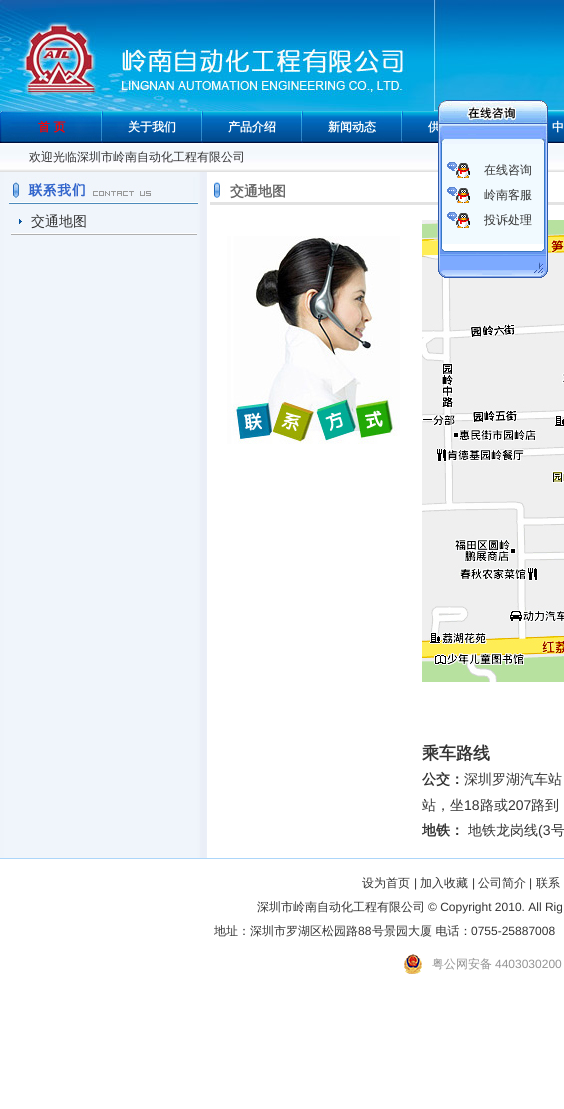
import math
import cairocffi as cairo

surface = cairo.ImageSurface(cairo.FORMAT_RGB24, 564, 1109)
cr = cairo.Context(surface)
options = cairo.FontOptions()
options.set_hint_metrics(cairo.HINT_METRICS_OFF)
options.set_hint_style(cairo.HINT_STYLE_NONE)
cr.set_font_options(options)
cr.set_miter_limit(4)


def use_color(code):
    cr.set_source_rgb(*(v / 255 for v in bytes.fromhex(code[-6:])))


def picture(path, x, y, w, h):
    cr.save()
    cr.set_source_surface(cairo.ImageSurface.create_from_png(path), x, y)
    cr.rectangle(x, y, w, h)
    cr.fill()
    cr.restore()


use_color("#ffffff")
cr.paint()
picture("img1.png", 0, 0, 434, 111)
picture("img2.png", 434, 0, 130, 111)
picture("img3.png", 0, 111, 564, 61)
cr.select_font_face("WenQuanYi Zen Hei", cairo.FONT_SLANT_NORMAL, cairo.FONT_WEIGHT_BOLD)
cr.set_font_size(12)
use_color("#ff0000")
cr.move_to(38, 131)
cr.show_text("首 页")
use_color("#ffffff")
cr.move_to(128, 131)
cr.show_text("关于我们")
cr.move_to(228, 131)
cr.show_text("产品介绍")
cr.move_to(328, 131)
cr.show_text("新闻动态")
cr.move_to(428, 131)
cr.show_text("供")
cr.move_to(552, 131)
cr.show_text("中")
cr.select_font_face("WenQuanYi Zen Hei Medium")
use_color("#333333")
cr.move_to(29, 161)
cr.show_text("欢迎光临深圳市岭南自动化工程有限公司")
picture("img4.png", 438, 100, 110, 44)
picture("img12.png", 210, 181, 354, 24)
picture("img14.png", 422, 220, 142, 462)
picture("img5.png", 438, 144, 110, 100)
picture("img6.png", 447, 162, 23, 16)
cr.move_to(484, 174)
cr.show_text("在线咨询")
picture("img6.png", 447, 187, 23, 16)
cr.move_to(484, 199)
cr.show_text("岭南客服")
picture("img6.png", 447, 212, 23, 16)
cr.move_to(484, 224)
cr.show_text("投诉处理")
picture("img7.png", 438, 244, 110, 34)
use_color("#acd6fa")
cr.rectangle(0, 858, 564, 1)
cr.fill()
picture("img8.png", 0, 172, 207, 686)
picture("img9.png", 9, 177, 189, 27)
picture("img10.png", 19, 219, 3, 5)
cr.set_font_size(14)
use_color("#333333")
cr.move_to(31, 226)
cr.show_text("交通地图")
picture("img11.png", 11, 233, 186, 2)
cr.select_font_face("WenQuanYi Zen Hei", cairo.FONT_SLANT_NORMAL, cairo.FONT_WEIGHT_BOLD)
use_color("#666666")
cr.move_to(230, 196)
cr.show_text("交通地图")
picture("img13.png", 227, 236, 173, 208)
cr.set_font_size(17)
use_color("#333333")
cr.move_to(422, 759)
cr.show_text("乘车路线")
cr.set_font_size(14)
cr.move_to(422, 784)
cr.show_text("公交：")
cr.select_font_face("WenQuanYi Zen Hei Medium")
cr.move_to(464, 784)
cr.show_text("深圳罗湖汽车站")
cr.move_to(422, 810)
cr.show_text("站，坐")
cr.select_font_face("Liberation Sans")
cr.move_to(464, 810)
cr.show_text("18")
cr.select_font_face("WenQuanYi Zen Hei Medium")
cr.move_to(480, 810)
cr.show_text("路或")
cr.select_font_face("Liberation Sans")
cr.move_to(508, 810)
cr.show_text("207")
cr.select_font_face("WenQuanYi Zen Hei Medium")
cr.move_to(531, 810)
cr.show_text("路到")
cr.select_font_face("WenQuanYi Zen Hei", cairo.FONT_SLANT_NORMAL, cairo.FONT_WEIGHT_BOLD)
cr.move_to(422, 835)
cr.show_text("地铁：")
cr.select_font_face("WenQuanYi Zen Hei Medium")
cr.move_to(468, 835)
cr.show_text("地铁龙岗线")
cr.select_font_face("Liberation Sans")
cr.move_to(538, 835)
cr.show_text("(3")
cr.select_font_face("WenQuanYi Zen Hei Medium")
cr.move_to(551, 835)
cr.show_text("号")
cr.set_font_size(12)
cr.move_to(362, 887)
cr.show_text("设为首页")
cr.select_font_face("Liberation Sans")
cr.move_to(414, 887)
cr.show_text("|")
cr.select_font_face("WenQuanYi Zen Hei Medium")
cr.move_to(420, 887)
cr.show_text("加入收藏")
cr.select_font_face("Liberation Sans")
cr.move_to(472, 887)
cr.show_text("|")
cr.select_font_face("WenQuanYi Zen Hei Medium")
cr.move_to(478, 887)
cr.show_text("公司简介")
cr.select_font_face("Liberation Sans")
cr.move_to(529, 887)
cr.show_text("|")
cr.select_font_face("WenQuanYi Zen Hei Medium")
cr.move_to(536, 887)
cr.show_text("联系")
cr.move_to(257, 911)
cr.show_text("深圳市岭南自动化工程有限公司")
cr.select_font_face("Liberation Sans")
cr.move_to(428, 911)
cr.show_text("© Copyright 2010. All Rig")
cr.select_font_face("WenQuanYi Zen Hei Medium")
cr.move_to(214, 935)
cr.show_text("地址：深圳市罗湖区松园路")
cr.select_font_face("Liberation Sans")
cr.move_to(358, 935)
cr.show_text("88")
cr.select_font_face("WenQuanYi Zen Hei Medium")
cr.move_to(372, 935)
cr.show_text("号景园大厦 电话：")
cr.select_font_face("Liberation Sans")
cr.move_to(471, 935)
cr.show_text("0755-25887008")
picture("img15.png", 404, 954, 18, 20)
cr.select_font_face("WenQuanYi Zen Hei Medium")
use_color("#939393")
cr.move_to(432, 968)
cr.show_text("粤公网安备")
cr.select_font_face("Liberation Sans")
cr.move_to(495, 968)
cr.show_text("4403030200")
surface.write_to_png("result.png")
